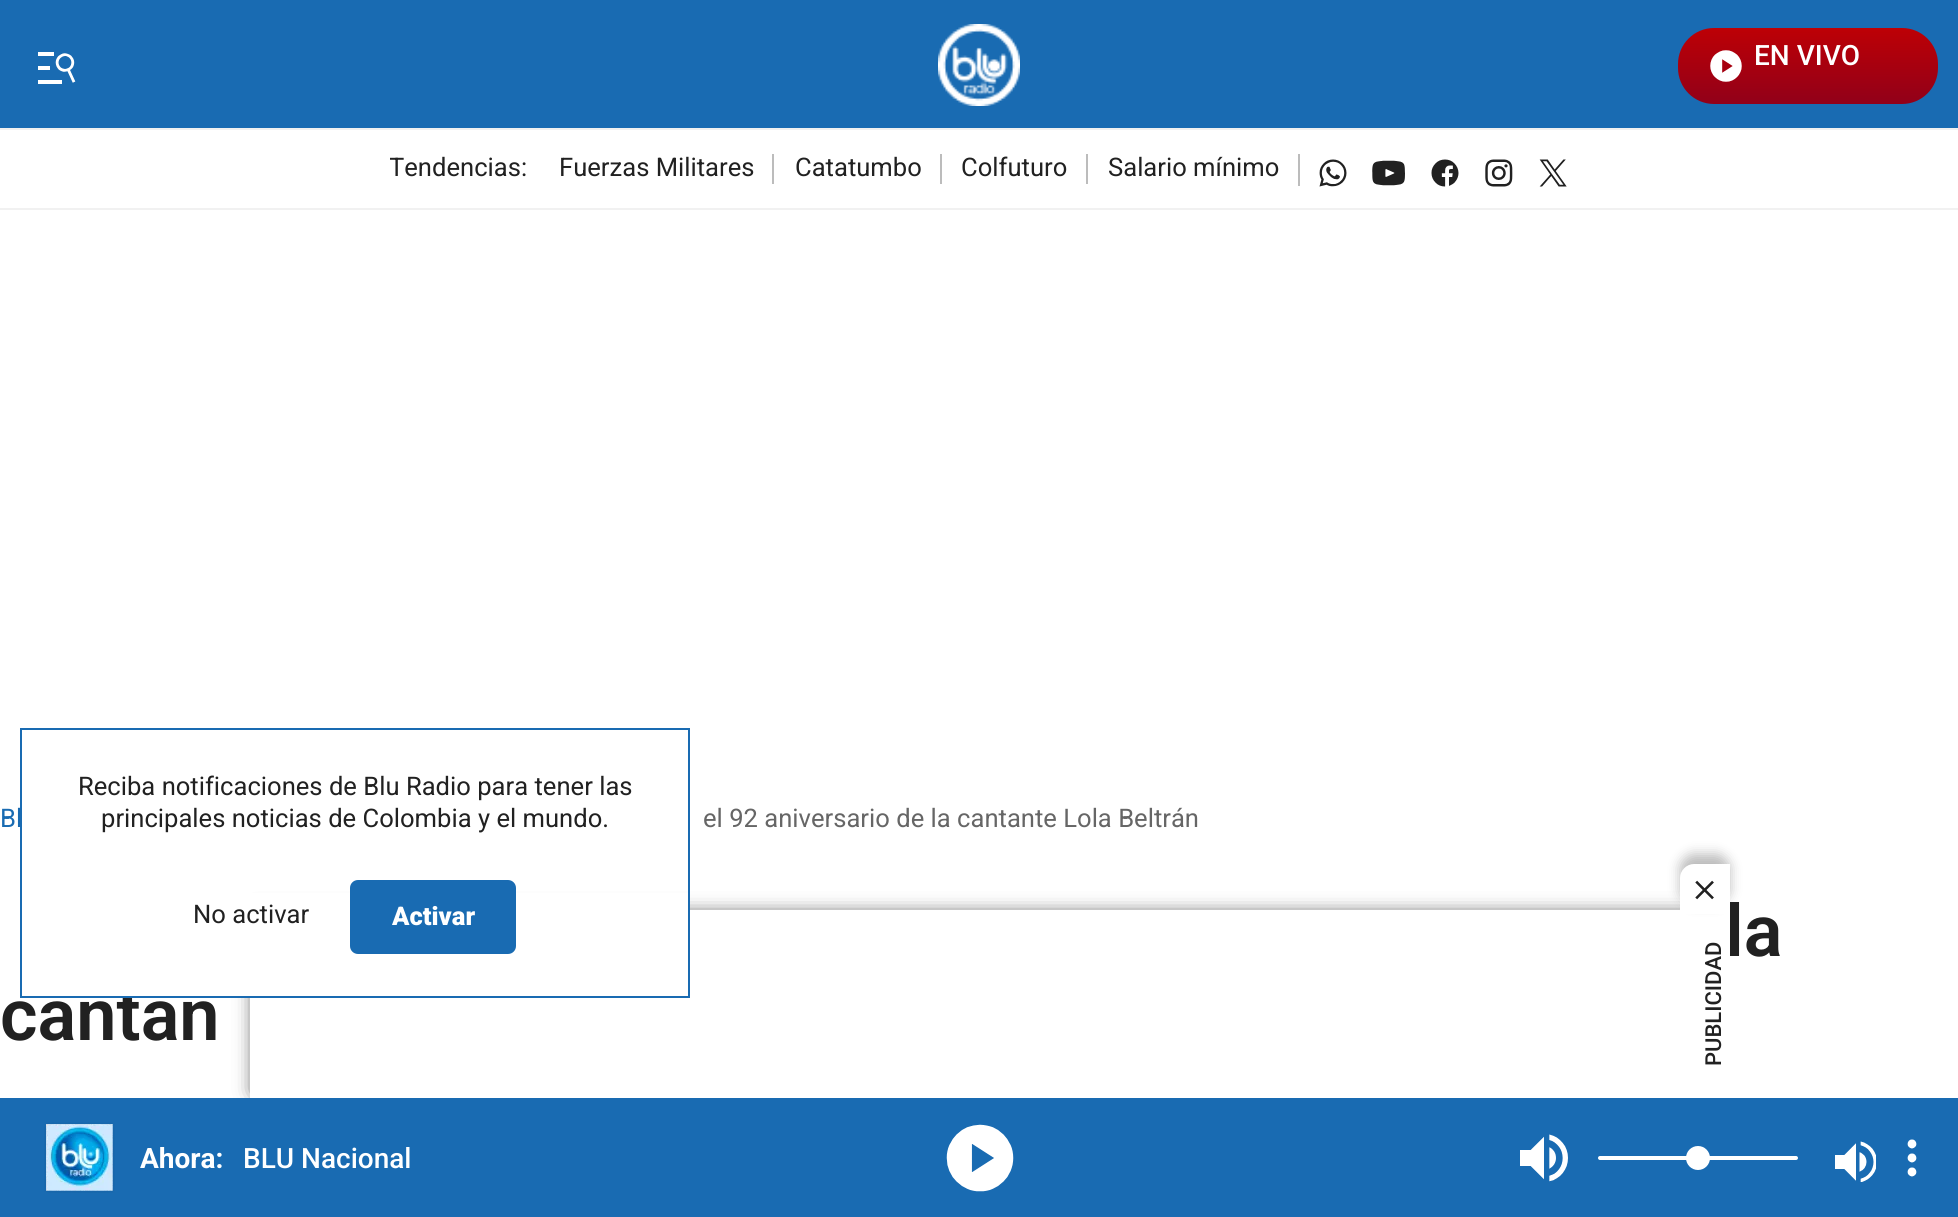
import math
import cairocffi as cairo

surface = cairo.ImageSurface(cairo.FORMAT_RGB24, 1958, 1217)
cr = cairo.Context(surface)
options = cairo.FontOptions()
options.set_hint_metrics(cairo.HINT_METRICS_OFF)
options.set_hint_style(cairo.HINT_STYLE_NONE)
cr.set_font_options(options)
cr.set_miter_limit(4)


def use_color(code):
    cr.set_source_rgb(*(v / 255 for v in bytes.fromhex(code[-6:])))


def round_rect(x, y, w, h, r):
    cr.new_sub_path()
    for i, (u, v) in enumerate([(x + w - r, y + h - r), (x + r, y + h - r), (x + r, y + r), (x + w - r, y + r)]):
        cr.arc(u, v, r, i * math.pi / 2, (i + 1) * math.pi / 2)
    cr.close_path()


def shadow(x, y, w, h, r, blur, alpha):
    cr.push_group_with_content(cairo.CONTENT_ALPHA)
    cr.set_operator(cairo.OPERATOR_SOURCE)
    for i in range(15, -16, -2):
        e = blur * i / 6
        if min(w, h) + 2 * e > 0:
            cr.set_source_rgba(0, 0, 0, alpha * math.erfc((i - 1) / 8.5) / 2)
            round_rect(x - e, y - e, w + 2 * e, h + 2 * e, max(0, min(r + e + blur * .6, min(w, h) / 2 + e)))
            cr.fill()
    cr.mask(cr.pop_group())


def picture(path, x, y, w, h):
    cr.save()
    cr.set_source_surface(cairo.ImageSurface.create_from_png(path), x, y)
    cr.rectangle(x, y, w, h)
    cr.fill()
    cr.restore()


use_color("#ffffff")
cr.paint()
use_color("#196bb2")
cr.rectangle(0, 0, 1958, 128)
cr.fill()
use_color("#f1f1f1")
cr.rectangle(0, 128, 1958, 2)
cr.fill()
picture("img1.png", 38, 52, 38, 32)
picture("img2.png", 938, 24, 82, 82)
gradient = cairo.LinearGradient(1808, 28, 1808, 104)
gradient.add_color_stop_rgba(0, 0.741, 0, 0.02, 1)
gradient.add_color_stop_rgba(1, 0.569, 0, 0.098, 1)
cr.set_source(gradient)
round_rect(1678, 28, 260, 76, 36)
cr.fill()
picture("img3.png", 1710, 50, 32, 32)
cr.select_font_face("Roboto Medium")
cr.set_font_size(28)
use_color("#ffffff")
cr.move_to(1754, 65)
cr.show_text("EN VIVO")
use_color("#f1f1f1")
cr.rectangle(0, 208, 1958, 2)
cr.fill()
cr.save()
cr.rectangle(390, 130, 908, 78)
cr.clip()
cr.select_font_face("Roboto")
cr.set_font_size(25.6)
use_color("#212121")
cr.move_to(389, 176)
cr.show_text("Tendencias:")
cr.restore()
cr.select_font_face("Roboto")
cr.set_font_size(25.6)
use_color("#212121")
cr.move_to(559, 176)
cr.show_text("Fuerzas Militares")
use_color("#bcbcbc")
cr.rectangle(772, 154, 2, 30)
cr.fill()
use_color("#212121")
cr.move_to(795, 176)
cr.show_text("Catatumbo")
use_color("#bcbcbc")
cr.rectangle(940, 154, 2, 30)
cr.fill()
use_color("#212121")
cr.move_to(961, 176)
cr.show_text("Colfuturo")
use_color("#bcbcbc")
cr.rectangle(1086, 154, 2, 30)
cr.fill()
use_color("#212121")
cr.move_to(1108, 176)
cr.show_text("Salario mínimo")
use_color("#bcbcbc")
cr.rectangle(1298, 154, 2, 32)
cr.fill()
picture("img4.png", 1319, 159, 28, 28)
picture("img5.png", 1372, 160, 33, 26)
picture("img6.png", 1431, 159, 28, 28)
picture("img7.png", 1485, 159, 28, 28)
picture("img8.png", 1539, 159, 28, 28)
cr.select_font_face("Roboto SemiBold")
cr.set_font_size(72)
use_color("#212121")
cr.move_to(0, 1040)
cr.show_text("cantan")
use_color("#212121")
shadow(256, 916, 1448, 176, 0, 10, 1)
use_color("#ffffff")
cr.rectangle(250, 910, 1454, 188)
cr.fill()
cr.rectangle(122, 893, 566, 103)
cr.fill()
cr.rectangle(21, 729, 668, 268)
use_color("#196bb2")
cr.stroke()
cr.select_font_face("Roboto")
cr.set_font_size(25.6)
use_color("#212121")
cr.move_to(78, 795)
cr.show_text("Reciba notificaciones de Blu Radio para tener las")
cr.move_to(101, 827)
cr.show_text("principales noticias de Colombia y el mundo.")
cr.move_to(193, 923)
cr.show_text("No activar")
use_color("#196bb2")
round_rect(351, 881, 164, 72, 7)
cr.fill_preserve()
cr.stroke()
cr.select_font_face("Roboto Black")
use_color("#ffffff")
cr.move_to(392, 925)
cr.show_text("Activar")
cr.select_font_face("Roboto")
use_color("#196bb2")
cr.move_to(0, 827)
cr.show_text("Bl")
use_color("#666666")
cr.move_to(703, 827)
cr.show_text("el 92 aniversario de la cantante Lola Beltrán")
cr.select_font_face("Roboto SemiBold")
cr.set_font_size(72)
use_color("#212121")
cr.move_to(1725, 956)
cr.show_text("la")
use_color("#ffffff")
cr.rectangle(1704, 914, 26, 184)
cr.fill()
use_color("#212121")
shadow(1680, 854, 50, 50, 14, 6, 0.3)
use_color("#ffffff")
cr.new_path()
cr.move_to(1694, 864)
cr.line_to(1730, 864)
cr.line_to(1730, 914)
cr.line_to(1680, 914)
cr.line_to(1680, 878)
cr.curve_to(1680, 870.5, 1686.5, 864, 1694, 864)
cr.close_path()
cr.fill()
picture("img9.png", 1695, 880, 19, 20)
cr.select_font_face("Roboto Medium")
cr.set_font_size(22)
use_color("#212121")
cr.save()
cr.translate(1721, 1066)
cr.rotate(-90 * math.pi / 180)
cr.move_to(0, 0)
cr.show_text("PUBLICIDAD")
cr.restore()
use_color("#196bb2")
cr.rectangle(0, 1098, 1958, 119)
cr.fill()
picture("img10.png", 44, 1122, 71, 71)
cr.select_font_face("Roboto", cairo.FONT_SLANT_NORMAL, cairo.FONT_WEIGHT_BOLD)
cr.set_font_size(28)
use_color("#ffffff")
cr.move_to(140, 1168)
cr.show_text("Ahora:")
cr.select_font_face("Roboto Medium")
cr.move_to(243, 1168)
cr.show_text("BLU Nacional")
picture("img11.png", 946, 1124, 68, 68)
picture("img12.png", 1520, 1134, 48, 48)
round_rect(1598, 1156, 200, 4, 2)
cr.fill()
cr.arc(1698, 1158, 12, 0, 2 * math.pi)
cr.fill()
picture("img13.png", 1835, 1141, 41, 41)
picture("img14.png", 1907, 1139, 10, 38)
surface.write_to_png("result.png")
